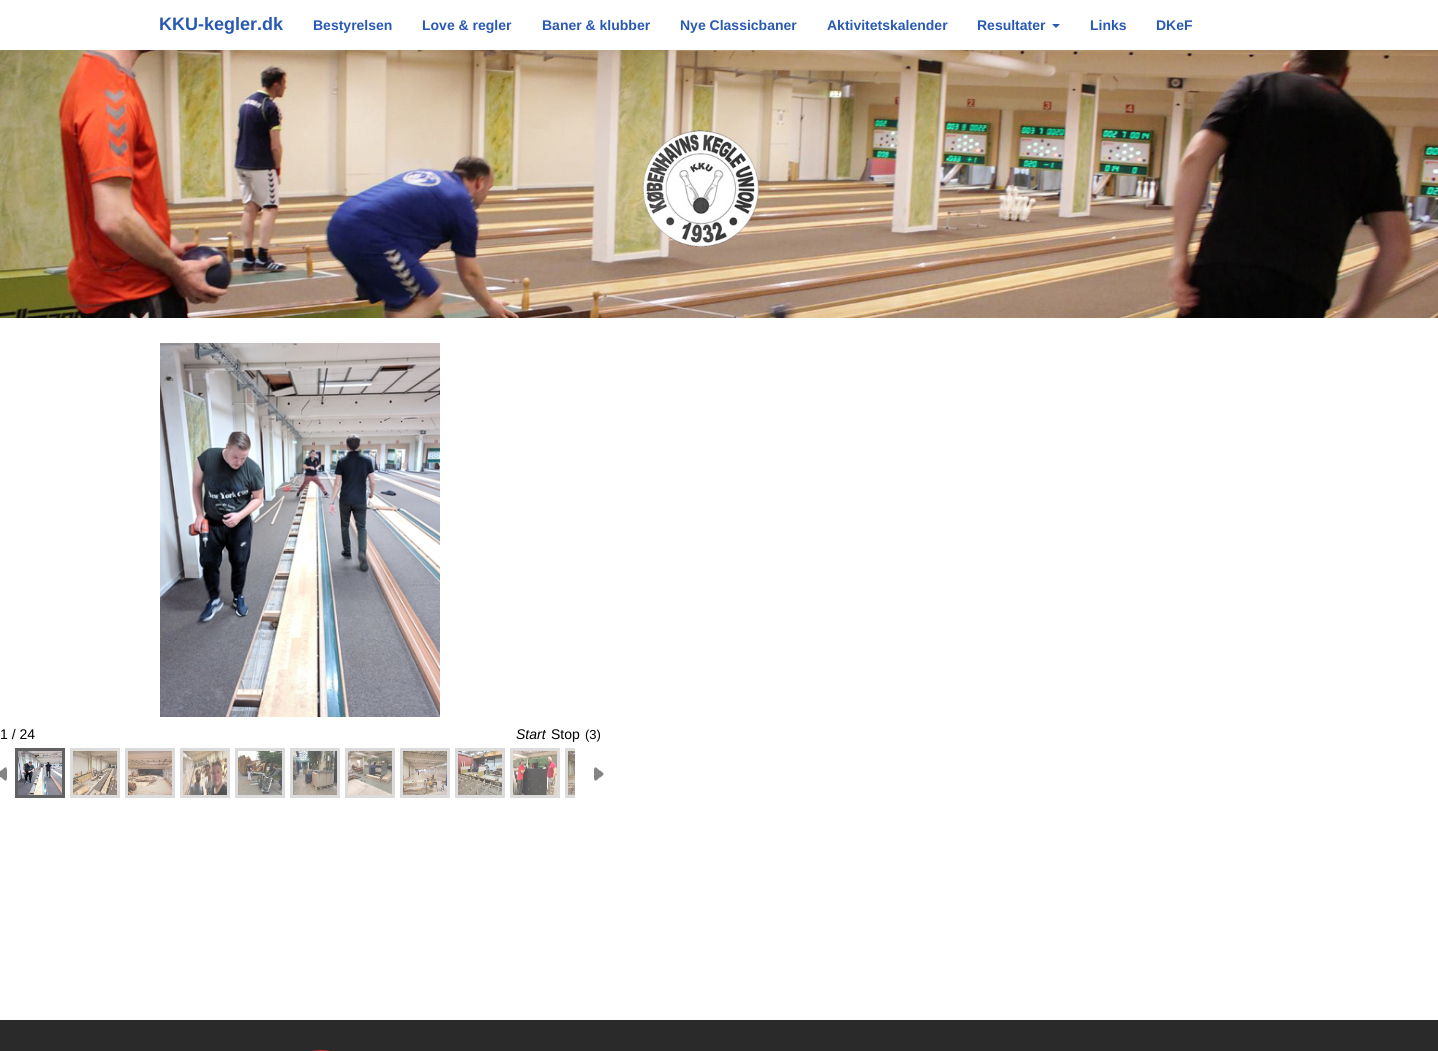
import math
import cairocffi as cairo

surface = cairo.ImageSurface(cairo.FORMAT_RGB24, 1438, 1051)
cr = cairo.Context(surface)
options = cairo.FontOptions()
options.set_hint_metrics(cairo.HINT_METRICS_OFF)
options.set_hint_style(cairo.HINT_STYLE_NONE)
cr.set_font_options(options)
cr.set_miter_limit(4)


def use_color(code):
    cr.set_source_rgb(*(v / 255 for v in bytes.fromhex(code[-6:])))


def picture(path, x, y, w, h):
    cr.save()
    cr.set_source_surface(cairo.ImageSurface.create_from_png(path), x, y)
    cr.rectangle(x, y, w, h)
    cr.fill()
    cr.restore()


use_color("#ffffff")
cr.paint()
cr.select_font_face("Liberation Sans", cairo.FONT_SLANT_NORMAL, cairo.FONT_WEIGHT_BOLD)
cr.set_font_size(18)
use_color("#2a59b3")
cr.move_to(159, 30)
cr.show_text("KKU-kegler.dk")
cr.set_font_size(14)
cr.move_to(313, 30)
cr.show_text("Bestyrelsen")
cr.move_to(422, 30)
cr.show_text("Love & regler")
cr.move_to(542, 30)
cr.show_text("Baner & klubber")
cr.move_to(680, 30)
cr.show_text("Nye Classicbaner")
cr.move_to(827, 30)
cr.show_text("Aktivitetskalender")
cr.move_to(977, 30)
cr.show_text("Resultater")
cr.new_path()
cr.move_to(1052, 24)
cr.line_to(1060, 24)
cr.line_to(1056, 28)
cr.close_path()
cr.fill()
cr.move_to(1090, 30)
cr.show_text("Links")
cr.move_to(1156, 30)
cr.show_text("DKeF")
picture("img1.png", 0, 50, 1438, 268)
picture("img2.png", 160, 343, 280, 374)
cr.select_font_face("Liberation Sans")
use_color("#000000")
cr.move_to(0, 739)
cr.show_text("1 / 24")
cr.select_font_face("Liberation Sans", cairo.FONT_SLANT_ITALIC)
cr.move_to(516, 739)
cr.show_text("Start")
cr.select_font_face("Liberation Sans")
cr.move_to(551, 739)
cr.show_text("Stop")
cr.set_font_size(13)
cr.move_to(585, 739)
cr.show_text("(3)")
picture("img3.png", 0, 767, 7, 14)
cr.rectangle(16.5, 749.5, 47, 47)
use_color("#616161")
cr.set_line_width(3)
cr.stroke()
picture("img4.png", 18, 751, 44, 44)
cr.rectangle(71.5, 749.5, 47, 47)
use_color("#dbdbdb")
cr.stroke()
picture("img5.png", 73, 751, 44, 44)
cr.rectangle(126.5, 749.5, 47, 47)
cr.stroke()
picture("img6.png", 128, 751, 44, 44)
cr.rectangle(181.5, 749.5, 47, 47)
cr.stroke()
picture("img7.png", 183, 751, 44, 44)
cr.rectangle(236.5, 749.5, 47, 47)
cr.stroke()
picture("img8.png", 238, 751, 44, 44)
cr.rectangle(291.5, 749.5, 47, 47)
cr.stroke()
picture("img9.png", 293, 751, 44, 44)
cr.rectangle(346.5, 749.5, 47, 47)
cr.stroke()
picture("img10.png", 348, 751, 44, 44)
cr.rectangle(401.5, 749.5, 47, 47)
cr.stroke()
picture("img11.png", 403, 751, 44, 44)
cr.rectangle(456.5, 749.5, 47, 47)
cr.stroke()
picture("img12.png", 458, 751, 44, 44)
cr.rectangle(511.5, 749.5, 47, 47)
cr.stroke()
picture("img13.png", 513, 751, 44, 44)
cr.save()
cr.rectangle(15, 748, 560, 106)
cr.clip()
cr.rectangle(566.5, 749.5, 47, 47)
cr.stroke()
cr.restore()
picture("img14.png", 568, 751, 7, 44)
picture("img15.png", 594, 767, 10, 14)
use_color("#2a2a2a")
cr.rectangle(0, 1020, 1438, 31)
cr.fill()
picture("img16.png", 312, 1050, 18, 1)
surface.write_to_png("result.png")
